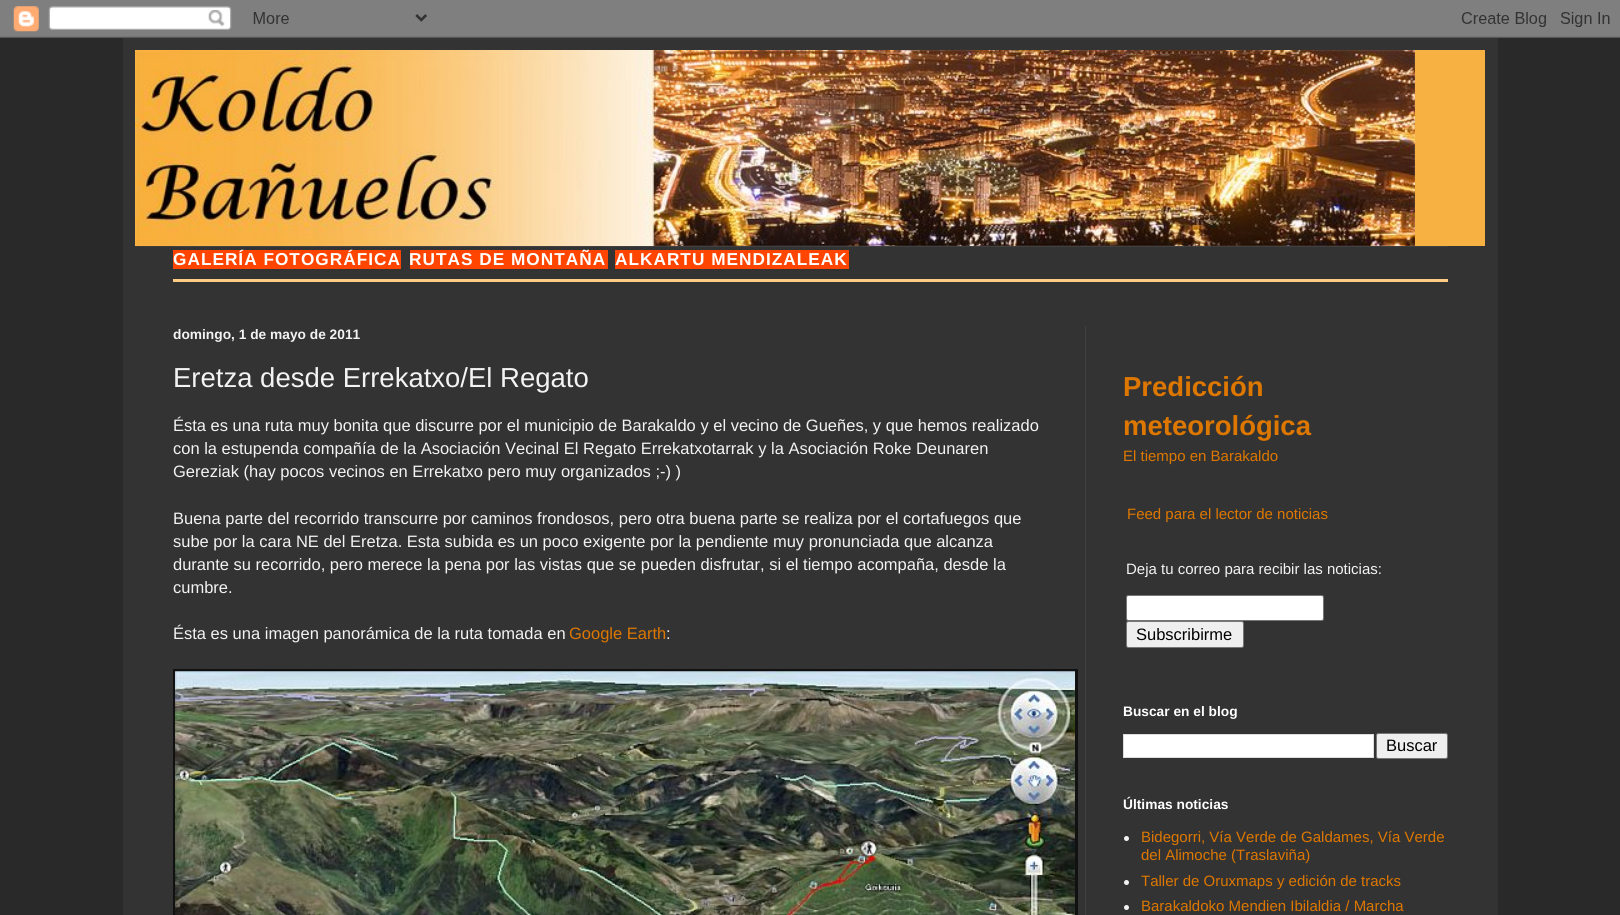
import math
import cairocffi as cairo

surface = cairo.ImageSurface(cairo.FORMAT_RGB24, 1620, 915)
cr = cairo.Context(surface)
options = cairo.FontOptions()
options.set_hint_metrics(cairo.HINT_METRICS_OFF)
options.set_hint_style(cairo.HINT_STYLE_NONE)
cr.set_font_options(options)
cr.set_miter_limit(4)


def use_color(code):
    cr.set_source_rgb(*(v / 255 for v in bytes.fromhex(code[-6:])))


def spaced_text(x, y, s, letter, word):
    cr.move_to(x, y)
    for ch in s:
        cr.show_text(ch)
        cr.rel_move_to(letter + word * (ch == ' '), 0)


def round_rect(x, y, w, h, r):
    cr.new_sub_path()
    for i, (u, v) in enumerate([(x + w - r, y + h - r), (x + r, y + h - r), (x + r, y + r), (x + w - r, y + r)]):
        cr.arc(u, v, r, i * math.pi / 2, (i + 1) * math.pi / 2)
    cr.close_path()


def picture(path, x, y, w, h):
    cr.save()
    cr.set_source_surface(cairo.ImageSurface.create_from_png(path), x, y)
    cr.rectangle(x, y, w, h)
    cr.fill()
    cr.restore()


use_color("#292929")
cr.paint()
picture("img1.png", 0, 0, 1620, 38)
use_color("#333333")
cr.rectangle(123, 38, 1375, 877)
cr.fill()
use_color("#f7b042")
cr.rectangle(1415, 50, 70, 196)
cr.fill()
picture("img2.png", 135, 50, 1280, 197)
use_color("#404040")
cr.rectangle(173, 246, 1275, 1)
cr.fill()
use_color("#ff4500")
cr.rectangle(173, 250, 228, 19)
cr.fill()
cr.select_font_face("Liberation Sans", cairo.FONT_SLANT_NORMAL, cairo.FONT_WEIGHT_BOLD)
cr.set_font_size(17.25)
use_color("#ffffff")
spaced_text(173, 265, "GALERÍA FOTOGRÁFICA", 1, 0)
use_color("#ff4500")
cr.rectangle(410, 250, 198, 19)
cr.fill()
use_color("#ffffff")
spaced_text(409, 265, "RUTAS DE MONTAÑA", 1, 0)
use_color("#ff4500")
cr.rectangle(615, 250, 234, 19)
cr.fill()
use_color("#ffffff")
spaced_text(615, 265, "ALKARTU MENDIZALEAK", 1, 0)
use_color("#fbcc81")
cr.rectangle(173, 279, 1275, 3)
cr.fill()
use_color("#404040")
cr.rectangle(1085, 326, 1, 589)
cr.fill()
cr.set_font_size(13.75)
use_color("#f3f3f3")
cr.move_to(173, 339)
cr.show_text("domingo, 1 de mayo de 2011")
cr.select_font_face("Liberation Sans")
cr.set_font_size(27.5)
cr.move_to(173, 387)
cr.show_text("Eretza desde Errekatxo/El Regato")
cr.set_font_size(16.5)
cr.move_to(173, 431)
cr.show_text("Ésta es una ruta muy bonita que discurre por el municipio de Barakaldo y el vecino de Gueñes, y que hemos realizado")
cr.move_to(173, 454)
cr.show_text("con la estupenda compañía de la Asociación Vecinal El Regato Errekatxotarrak y la Asociación Roke Deunaren")
cr.move_to(173, 477)
cr.show_text("Gereziak (hay pocos vecinos en Errekatxo pero muy organizados ;-) )")
cr.move_to(173, 524)
cr.show_text("Buena parte del recorrido transcurre por caminos frondosos, pero otra buena parte se realiza por el cortafuegos que")
cr.move_to(173, 547)
cr.show_text("sube por la cara NE del Eretza. Esta subida es un poco exigente por la pendiente muy pronunciada que alcanza")
cr.move_to(173, 570)
cr.show_text("durante su recorrido, pero merece la pena por las vistas que se pueden disfrutar, si el tiempo acompaña, desde la")
cr.move_to(173, 593)
cr.show_text("cumbre.")
cr.move_to(173, 639)
cr.show_text("Ésta es una imagen panorámica de la ruta tomada en")
use_color("#dd7700")
cr.move_to(569, 639)
cr.show_text("Google Earth")
use_color("#f3f3f3")
cr.move_to(666, 639)
cr.show_text(":")
use_color("#111111")
cr.rectangle(173, 669, 905, 246)
cr.fill()
picture("img3.png", 175, 671, 900, 244)
cr.select_font_face("Liberation Sans", cairo.FONT_SLANT_NORMAL, cairo.FONT_WEIGHT_BOLD)
cr.set_font_size(27.5)
use_color("#dd7700")
cr.move_to(1123, 396)
cr.show_text("Predicción")
cr.move_to(1123, 435)
cr.show_text("meteorológica")
cr.select_font_face("Liberation Sans")
cr.set_font_size(15)
cr.move_to(1123, 461)
cr.show_text("El tiempo en Barakaldo")
cr.move_to(1127, 519)
cr.show_text("Feed para el lector de noticias")
use_color("#f3f3f3")
cr.move_to(1126, 574)
cr.show_text("Deja tu correo para recibir las noticias:")
use_color("#ffffff")
round_rect(1126.5, 595.5, 197, 25, 2)
cr.fill_preserve()
use_color("#767676")
cr.set_line_width(1)
cr.stroke()
use_color("#efefef")
round_rect(1126.5, 621.5, 117, 26, 2)
cr.fill_preserve()
use_color("#767676")
cr.stroke()
cr.set_font_size(16.5)
use_color("#000000")
cr.move_to(1136, 640)
cr.show_text("Subscribirme")
cr.select_font_face("Liberation Sans", cairo.FONT_SLANT_NORMAL, cairo.FONT_WEIGHT_BOLD)
cr.set_font_size(13.75)
use_color("#ffffff")
cr.move_to(1123, 716)
cr.show_text("Buscar en el blog")
cr.rectangle(1123.5, 734.5, 250, 23)
cr.fill_preserve()
use_color("#dddddd")
cr.stroke()
use_color("#efefef")
round_rect(1376.5, 733.5, 71, 25, 2)
cr.fill_preserve()
use_color("#767676")
cr.stroke()
cr.select_font_face("Liberation Sans")
cr.set_font_size(16.5)
use_color("#000000")
cr.move_to(1386, 751)
cr.show_text("Buscar")
cr.select_font_face("Liberation Sans", cairo.FONT_SLANT_NORMAL, cairo.FONT_WEIGHT_BOLD)
cr.set_font_size(13.75)
use_color("#ffffff")
cr.move_to(1123, 809)
cr.show_text("Últimas noticias")
use_color("#f3f3f3")
cr.new_path()
cr.arc(1126.5, 838.5, 2.5, 0, 2 * math.pi)
cr.fill()
cr.select_font_face("Liberation Sans")
cr.set_font_size(15)
use_color("#dd7700")
cr.move_to(1141, 842)
cr.show_text("Bidegorri, Vía Verde de Galdames, Vía Verde")
cr.move_to(1141, 860)
cr.show_text("del Alimoche (Traslaviña)")
use_color("#f3f3f3")
cr.new_path()
cr.arc(1126.5, 882.5, 2.5, 0, 2 * math.pi)
cr.fill()
use_color("#dd7700")
cr.move_to(1141, 886)
cr.show_text("Taller de Oruxmaps y edición de tracks")
use_color("#f3f3f3")
cr.new_path()
cr.arc(1126.5, 907.5, 2.5, 0, 2 * math.pi)
cr.fill()
use_color("#dd7700")
cr.move_to(1141, 911)
cr.show_text("Barakaldoko Mendien Ibilaldia / Marcha")
surface.write_to_png("result.png")
